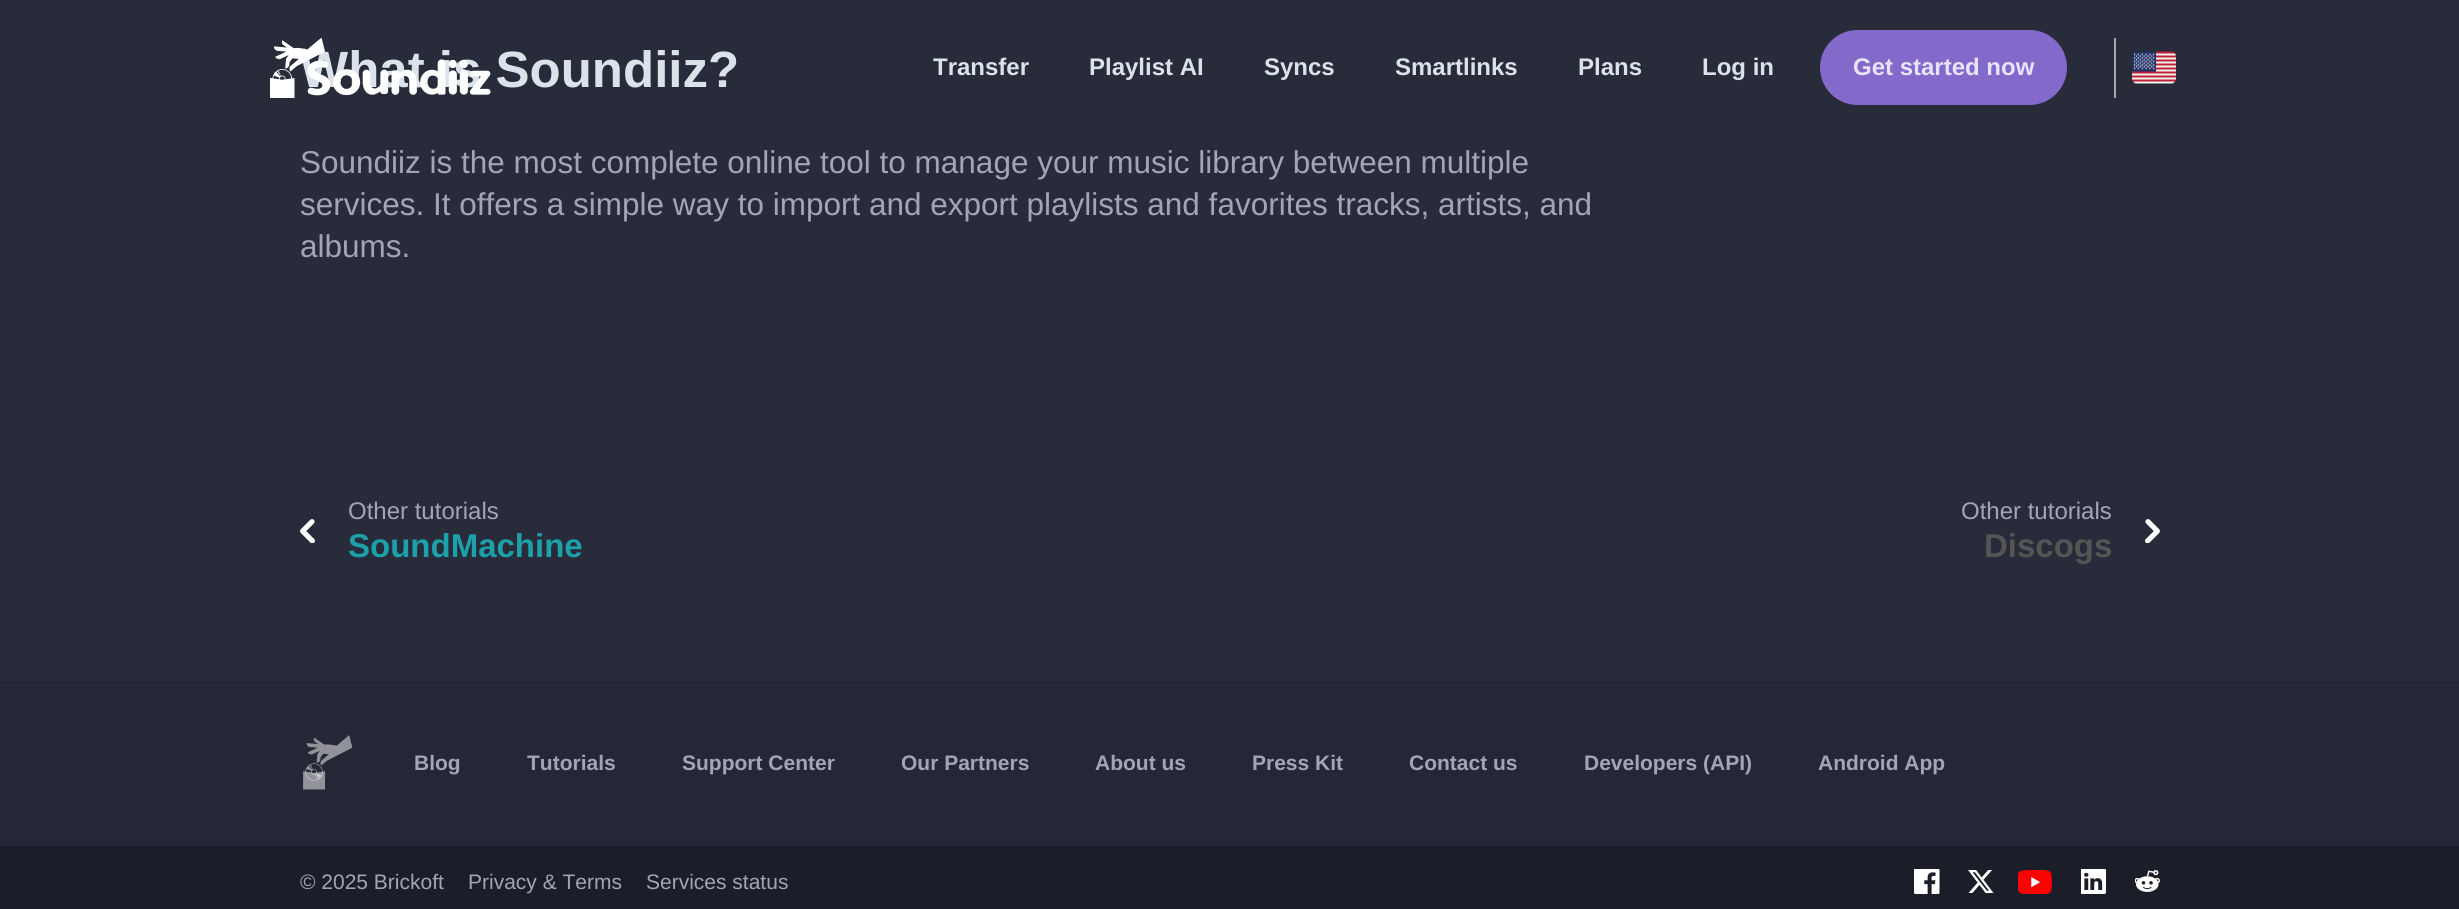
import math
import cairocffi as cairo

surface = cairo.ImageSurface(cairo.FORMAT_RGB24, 2459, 909)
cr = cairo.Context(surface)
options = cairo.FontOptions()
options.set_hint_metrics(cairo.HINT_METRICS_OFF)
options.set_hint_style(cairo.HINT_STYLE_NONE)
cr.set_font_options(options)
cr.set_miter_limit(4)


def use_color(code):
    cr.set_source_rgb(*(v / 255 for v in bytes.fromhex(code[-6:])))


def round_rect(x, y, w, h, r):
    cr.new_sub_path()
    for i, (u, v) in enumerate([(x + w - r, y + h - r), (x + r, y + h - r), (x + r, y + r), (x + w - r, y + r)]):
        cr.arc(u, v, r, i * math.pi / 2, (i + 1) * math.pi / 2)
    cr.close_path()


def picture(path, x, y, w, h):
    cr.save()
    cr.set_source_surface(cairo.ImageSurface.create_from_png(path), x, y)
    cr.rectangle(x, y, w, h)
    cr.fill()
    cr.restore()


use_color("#282b39")
cr.paint()
cr.select_font_face("Liberation Sans", cairo.FONT_SLANT_NORMAL, cairo.FONT_WEIGHT_BOLD)
cr.set_font_size(51)
use_color("#dae3e9")
cr.move_to(300, 87)
cr.show_text("What is Soundiiz?")
cr.select_font_face("Liberation Sans")
cr.set_font_size(31.5)
use_color("#a1a6b6")
cr.move_to(300, 173)
cr.show_text("Soundiiz is the most complete online tool to manage your music library between multiple")
cr.move_to(300, 215)
cr.show_text("services. It offers a simple way to import and export playlists and favorites tracks, artists, and")
cr.move_to(300, 257)
cr.show_text("albums.")
picture("img1.png", 270, 38, 221, 60)
cr.select_font_face("Liberation Sans", cairo.FONT_SLANT_NORMAL, cairo.FONT_WEIGHT_BOLD)
cr.set_font_size(24)
use_color("#dae3e9")
cr.move_to(933, 75)
cr.show_text("Transfer")
cr.move_to(1089, 75)
cr.show_text("Playlist AI")
cr.move_to(1264, 75)
cr.show_text("Syncs")
cr.move_to(1395, 75)
cr.show_text("Smartlinks")
cr.move_to(1578, 75)
cr.show_text("Plans")
cr.move_to(1702, 75)
cr.show_text("Log in")
use_color("#8369c9")
round_rect(1820, 30, 247, 75, 37.5)
cr.fill()
use_color("#e8e3fc")
cr.move_to(1853, 75)
cr.show_text("Get started now")
use_color("#a9aab0")
cr.rectangle(2114, 38, 2, 60)
cr.fill()
picture("img2.png", 2132, 51, 44, 33)
picture("img3.png", 300, 519, 15, 24)
cr.select_font_face("Liberation Sans")
use_color("#a1a6b6")
cr.move_to(348, 519)
cr.show_text("Other tutorials")
cr.select_font_face("Liberation Sans", cairo.FONT_SLANT_NORMAL, cairo.FONT_WEIGHT_BOLD)
cr.set_font_size(33)
use_color("#1ca1aa")
cr.move_to(348, 557)
cr.show_text("SoundMachine")
picture("img4.png", 2145, 519, 15, 24)
cr.select_font_face("Liberation Sans")
cr.set_font_size(24)
use_color("#a1a6b6")
cr.move_to(1961, 519)
cr.show_text("Other tutorials")
cr.select_font_face("Liberation Sans", cairo.FONT_SLANT_NORMAL, cairo.FONT_WEIGHT_BOLD)
cr.set_font_size(33)
use_color("#555555")
cr.move_to(1984, 557)
cr.show_text("Discogs")
use_color("#242735")
cr.rectangle(0, 681, 2459, 165)
cr.fill()
picture("img5.png", 303, 735, 50, 55)
cr.set_font_size(21)
use_color("#a1a6b6")
cr.move_to(414, 770)
cr.show_text("Blog")
cr.move_to(527, 770)
cr.show_text("Tutorials")
cr.move_to(682, 770)
cr.show_text("Support Center")
cr.move_to(901, 770)
cr.show_text("Our Partners")
cr.move_to(1095, 770)
cr.show_text("About us")
cr.move_to(1252, 770)
cr.show_text("Press Kit")
cr.move_to(1409, 770)
cr.show_text("Contact us")
cr.move_to(1584, 770)
cr.show_text("Developers (API)")
cr.move_to(1818, 770)
cr.show_text("Android App")
use_color("#1b1e28")
cr.rectangle(0, 846, 2459, 63)
cr.fill()
cr.select_font_face("Liberation Sans")
use_color("#a1a6b6")
cr.move_to(300, 889)
cr.show_text("© 2025 Brickoft")
cr.move_to(468, 889)
cr.show_text("Privacy & Terms")
cr.move_to(646, 889)
cr.show_text("Services status")
picture("img6.png", 1914, 869, 26, 25)
picture("img7.png", 1968, 870, 26, 23)
picture("img8.png", 2018, 870, 34, 24)
picture("img9.png", 2081, 869, 25, 25)
picture("img10.png", 2135, 870, 25, 22)
surface.write_to_png("result.png")
